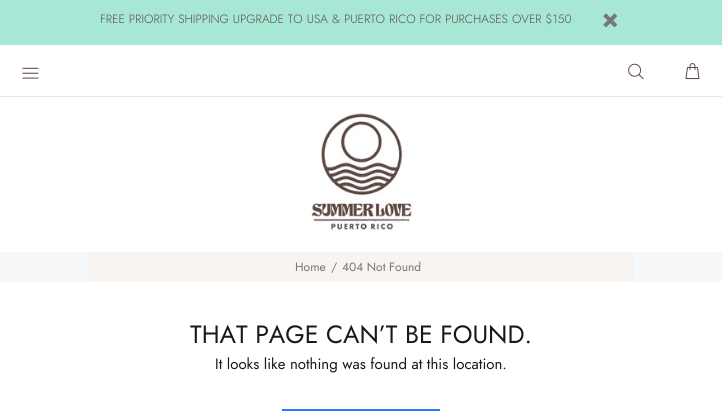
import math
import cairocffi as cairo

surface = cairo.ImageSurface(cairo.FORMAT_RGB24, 722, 411)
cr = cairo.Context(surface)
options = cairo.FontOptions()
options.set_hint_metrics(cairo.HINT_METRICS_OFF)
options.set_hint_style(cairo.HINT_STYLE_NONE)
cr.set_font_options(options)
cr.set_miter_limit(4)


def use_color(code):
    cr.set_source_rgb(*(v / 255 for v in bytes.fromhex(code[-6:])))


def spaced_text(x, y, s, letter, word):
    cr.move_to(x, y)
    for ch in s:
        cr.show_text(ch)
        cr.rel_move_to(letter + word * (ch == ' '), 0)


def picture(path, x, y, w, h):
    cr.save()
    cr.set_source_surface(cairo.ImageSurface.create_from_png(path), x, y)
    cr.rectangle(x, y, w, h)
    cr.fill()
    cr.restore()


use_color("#ffffff")
cr.paint()
use_color("#a6e8d5")
cr.rectangle(0, 0, 722, 45)
cr.fill()
cr.select_font_face("Jost Light")
cr.set_font_size(12)
use_color("#5e4b44")
spaced_text(100, 23, "FREE PRIORITY SHIPPING UPGRADE TO USA & PUERTO RICO FOR PURCHASES OVER $150", 0, 0.4)
picture("img1.png", 603, 13, 15, 15)
picture("img2.png", 22, 67, 17, 12)
picture("img3.png", 628, 63, 16, 17)
picture("img4.png", 685, 63, 15, 17)
use_color("#e9e7e7")
cr.rectangle(0, 96, 722, 1)
cr.fill()
picture("img5.png", 311, 112, 103, 119)
use_color("#f7f8fa")
cr.rectangle(0, 252, 722, 30)
cr.fill()
use_color("#f7f4f1")
cr.rectangle(88, 252, 546, 30)
cr.fill()
cr.select_font_face("Jost")
use_color("#777777")
cr.move_to(295, 271)
cr.show_text("Home")
cr.move_to(331, 271)
cr.show_text("/")
cr.move_to(342, 271)
cr.show_text("404 Not Found")
cr.set_font_size(25)
use_color("#191919")
cr.move_to(190, 343)
cr.show_text("THAT PAGE CAN’T BE FOUND.")
cr.set_font_size(15)
cr.move_to(215, 369)
cr.show_text("It looks like nothing was found at this location.")
use_color("#2879fe")
cr.rectangle(282, 409, 158, 2)
cr.fill()
surface.write_to_png("result.png")
